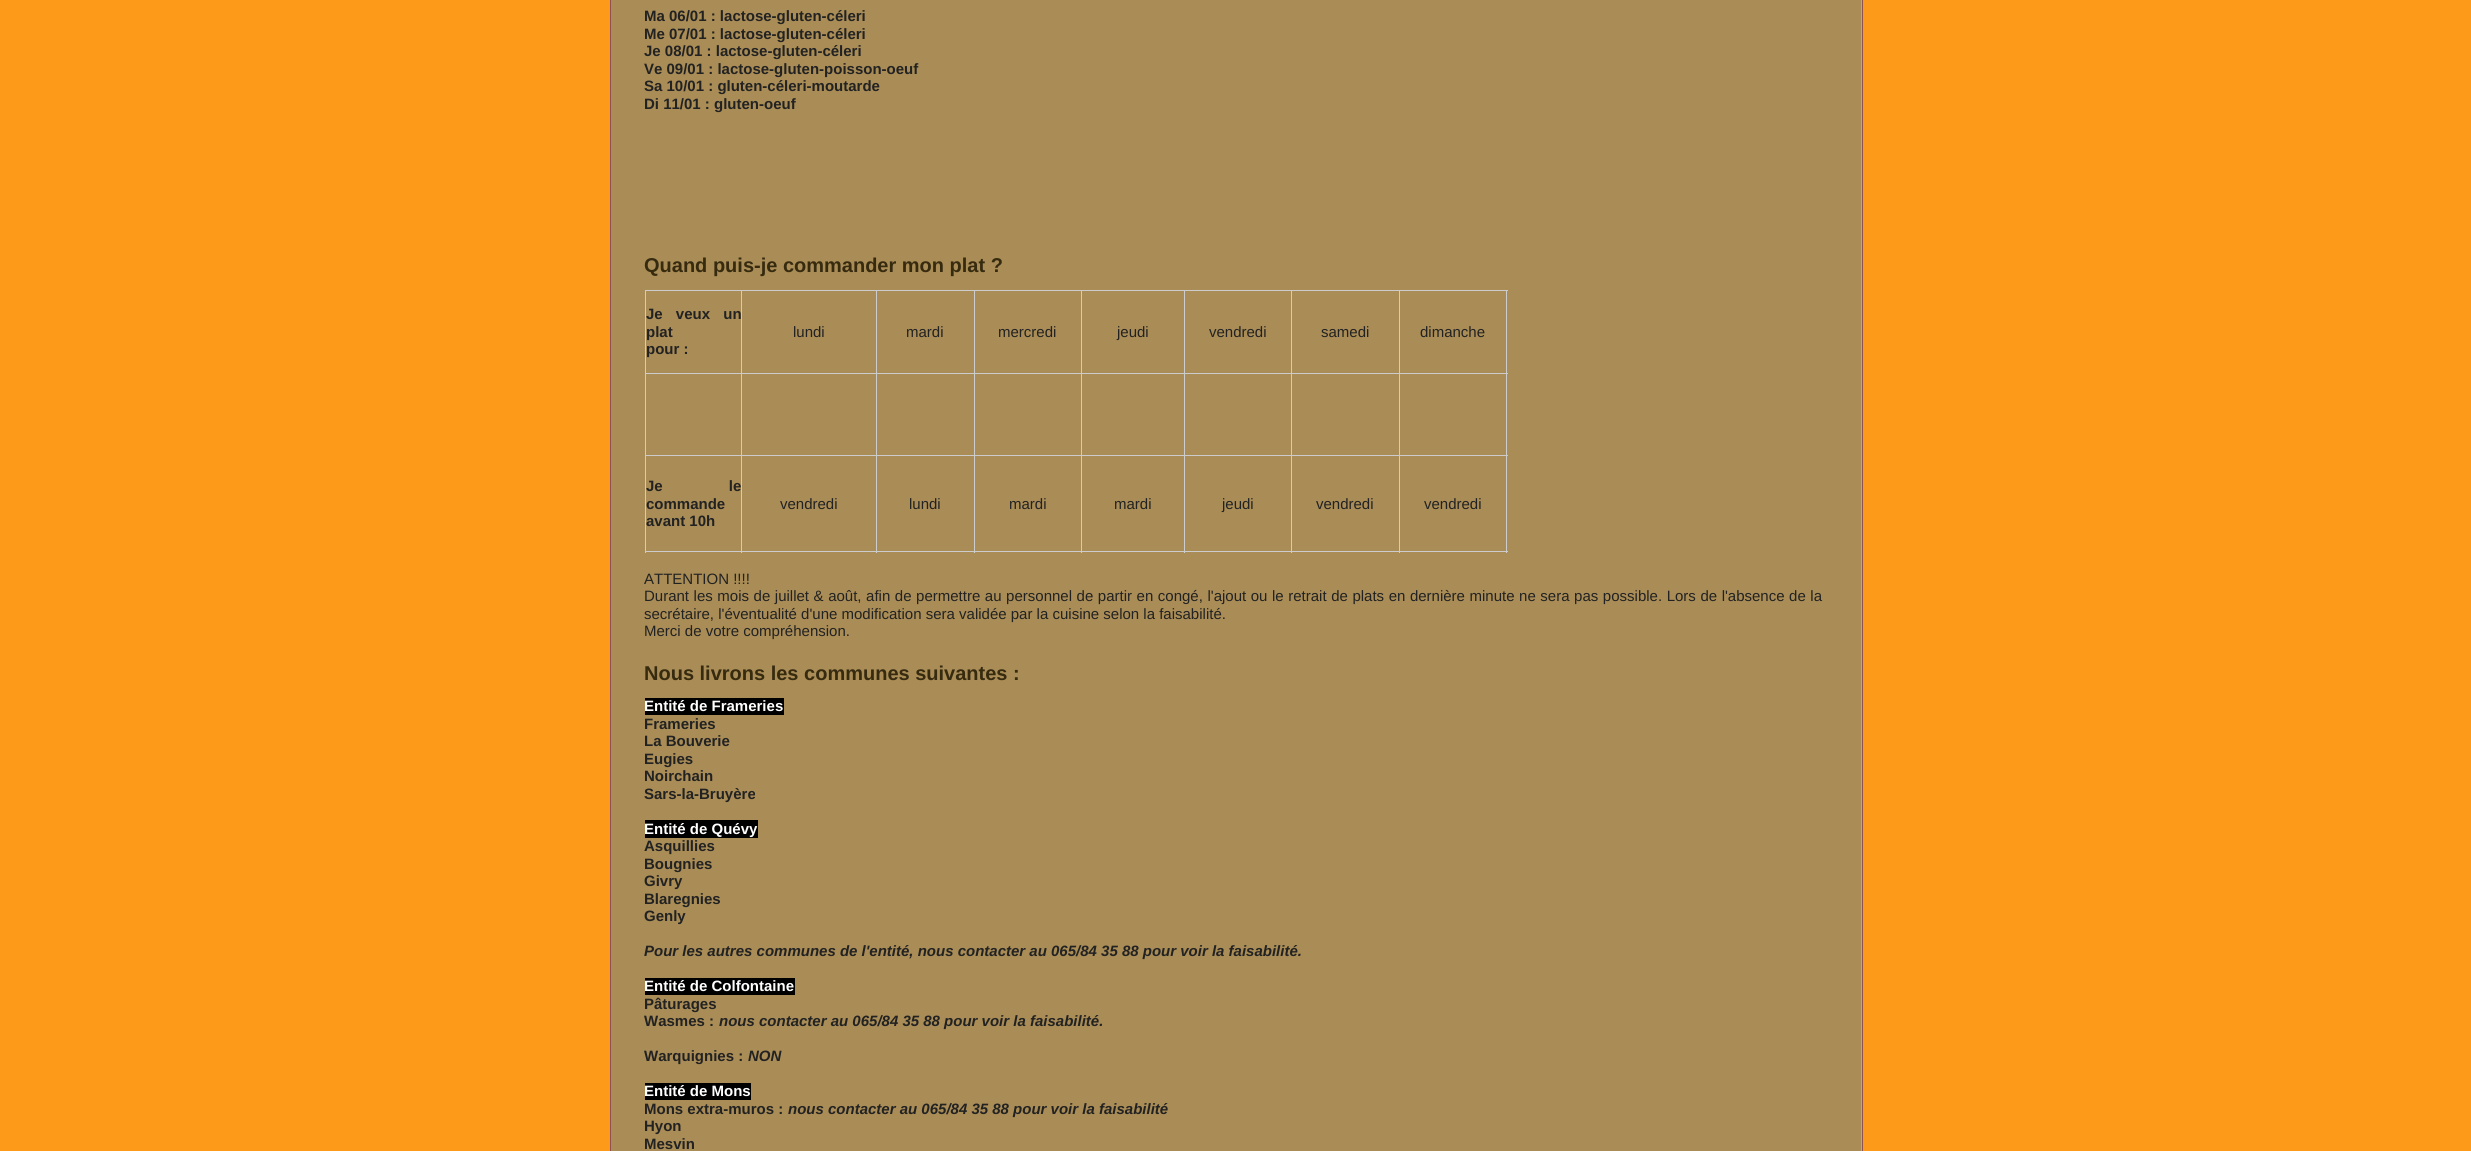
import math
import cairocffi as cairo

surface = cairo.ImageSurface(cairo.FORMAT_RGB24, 2471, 1151)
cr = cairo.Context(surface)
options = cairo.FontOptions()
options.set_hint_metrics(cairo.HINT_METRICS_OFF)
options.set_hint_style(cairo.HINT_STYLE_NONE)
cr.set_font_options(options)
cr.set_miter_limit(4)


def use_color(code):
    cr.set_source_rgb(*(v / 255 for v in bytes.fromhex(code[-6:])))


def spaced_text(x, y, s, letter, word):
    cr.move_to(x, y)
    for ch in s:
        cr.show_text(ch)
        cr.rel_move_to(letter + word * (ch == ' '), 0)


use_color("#fd9a1a")
cr.paint()
cr.rectangle(610.5, -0.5, 1252, 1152)
use_color("#8f5151")
cr.set_line_width(1)
cr.stroke()
use_color("#a98c56")
cr.rectangle(611, 0, 1250, 1151)
cr.fill()
cr.select_font_face("Liberation Sans", cairo.FONT_SLANT_NORMAL, cairo.FONT_WEIGHT_BOLD)
cr.set_font_size(15)
use_color("#222222")
cr.move_to(644, 21)
cr.show_text("Ma 06/01 : lactose-gluten-céleri")
cr.move_to(644, 39)
cr.show_text("Me 07/01 : lactose-gluten-céleri")
cr.move_to(644, 56)
cr.show_text("Je 08/01 : lactose-gluten-céleri")
cr.move_to(644, 74)
cr.show_text("Ve 09/01 : lactose-gluten-poisson-oeuf")
cr.move_to(644, 91)
cr.show_text("Sa 10/01 : gluten-céleri-moutarde")
cr.move_to(644, 109)
cr.show_text("Di 11/01 : gluten-oeuf")
cr.set_font_size(20)
use_color("#362a0f")
cr.move_to(644, 272)
cr.show_text("Quand puis-je commander mon plat ?")
use_color("#cccccc")
cr.rectangle(645, 290, 863, 1)
cr.fill()
cr.rectangle(1506, 290, 1, 263)
cr.fill()
cr.rectangle(645, 551, 863, 1)
cr.fill()
cr.rectangle(645, 290, 1, 263)
cr.fill()
cr.set_font_size(15)
use_color("#222222")
spaced_text(646, 319, "Je veux un", 0, 9)
cr.move_to(646, 337)
cr.show_text("plat")
cr.move_to(646, 354)
cr.show_text("pour :")
use_color("#cccccc")
cr.rectangle(1399, 373, 109, 1)
cr.fill()
cr.rectangle(1399, 455, 109, 1)
cr.fill()
cr.rectangle(1399, 455, 1, 98)
cr.fill()
cr.rectangle(1291, 455, 109, 1)
cr.fill()
cr.rectangle(1399, 373, 1, 83)
cr.fill()
cr.rectangle(1291, 373, 109, 1)
cr.fill()
cr.rectangle(1291, 455, 1, 98)
cr.fill()
cr.rectangle(1184, 455, 109, 1)
cr.fill()
cr.rectangle(1291, 373, 1, 83)
cr.fill()
cr.rectangle(1184, 373, 109, 1)
cr.fill()
cr.rectangle(1184, 455, 1, 98)
cr.fill()
cr.rectangle(1081, 455, 104, 1)
cr.fill()
cr.rectangle(1184, 373, 1, 83)
cr.fill()
cr.rectangle(1081, 373, 104, 1)
cr.fill()
cr.rectangle(1081, 455, 1, 98)
cr.fill()
cr.rectangle(974, 455, 109, 1)
cr.fill()
cr.rectangle(1081, 373, 1, 83)
cr.fill()
cr.rectangle(974, 373, 109, 1)
cr.fill()
cr.rectangle(974, 455, 1, 98)
cr.fill()
cr.rectangle(876, 455, 99, 1)
cr.fill()
cr.rectangle(974, 373, 1, 83)
cr.fill()
cr.rectangle(876, 373, 99, 1)
cr.fill()
cr.rectangle(876, 455, 1, 98)
cr.fill()
cr.rectangle(741, 455, 137, 1)
cr.fill()
cr.rectangle(876, 373, 1, 83)
cr.fill()
cr.rectangle(741, 373, 137, 1)
cr.fill()
cr.rectangle(741, 455, 1, 98)
cr.fill()
cr.rectangle(645, 455, 98, 1)
cr.fill()
cr.rectangle(741, 373, 1, 83)
cr.fill()
cr.rectangle(645, 373, 98, 1)
cr.fill()
cr.rectangle(741, 290, 1, 84)
cr.fill()
cr.select_font_face("Liberation Sans")
use_color("#222222")
cr.move_to(793, 337)
cr.show_text("lundi")
use_color("#cccccc")
cr.rectangle(876, 290, 1, 84)
cr.fill()
use_color("#222222")
cr.move_to(906, 337)
cr.show_text("mardi")
use_color("#cccccc")
cr.rectangle(974, 290, 1, 84)
cr.fill()
use_color("#222222")
cr.move_to(998, 337)
cr.show_text("mercredi")
use_color("#cccccc")
cr.rectangle(1081, 290, 1, 84)
cr.fill()
use_color("#222222")
cr.move_to(1117, 337)
cr.show_text("jeudi")
use_color("#cccccc")
cr.rectangle(1184, 290, 1, 84)
cr.fill()
use_color("#222222")
cr.move_to(1209, 337)
cr.show_text("vendredi")
use_color("#cccccc")
cr.rectangle(1291, 290, 1, 84)
cr.fill()
use_color("#222222")
cr.move_to(1321, 337)
cr.show_text("samedi")
use_color("#cccccc")
cr.rectangle(1399, 290, 1, 84)
cr.fill()
use_color("#222222")
cr.move_to(1420, 337)
cr.show_text("dimanche")
cr.select_font_face("Liberation Sans", cairo.FONT_SLANT_NORMAL, cairo.FONT_WEIGHT_BOLD)
spaced_text(646, 491, "Je le", 0, 62)
cr.move_to(646, 509)
cr.show_text("commande")
cr.move_to(646, 526)
cr.show_text("avant 10h")
cr.select_font_face("Liberation Sans")
cr.move_to(780, 509)
cr.show_text("vendredi")
cr.move_to(909, 509)
cr.show_text("lundi")
cr.move_to(1009, 509)
cr.show_text("mardi")
cr.move_to(1114, 509)
cr.show_text("mardi")
cr.move_to(1222, 509)
cr.show_text("jeudi")
cr.move_to(1316, 509)
cr.show_text("vendredi")
cr.move_to(1424, 509)
cr.show_text("vendredi")
cr.move_to(644, 584)
cr.show_text("ATTENTION !!!!")
spaced_text(644, 601, "Durant les mois de juillet & août, afin de permettre au personnel de partir en congé, l'ajout ou le retrait de plats en dernière minute ne sera pas possible. Lors de l'absence de la", 0, 0.4)
cr.move_to(644, 619)
cr.show_text("secrétaire, l'éventualité d'une modification sera validée par la cuisine selon la faisabilité.")
cr.move_to(644, 636)
cr.show_text("Merci de votre compréhension.")
cr.select_font_face("Liberation Sans", cairo.FONT_SLANT_NORMAL, cairo.FONT_WEIGHT_BOLD)
cr.set_font_size(20)
use_color("#362a0f")
cr.move_to(644, 680)
cr.show_text("Nous livrons les communes suivantes :")
use_color("#000000")
cr.rectangle(645, 698, 139, 17)
cr.fill()
cr.set_font_size(15)
use_color("#ffffff")
cr.move_to(644, 711)
cr.show_text("Entité de Frameries")
use_color("#222222")
cr.move_to(644, 729)
cr.show_text("Frameries")
cr.move_to(644, 746)
cr.show_text("La Bouverie")
cr.move_to(644, 764)
cr.show_text("Eugies")
cr.move_to(644, 781)
cr.show_text("Noirchain")
cr.move_to(644, 799)
cr.show_text("Sars-la-Bruyère")
use_color("#000000")
cr.rectangle(645, 820, 113, 18)
cr.fill()
use_color("#ffffff")
cr.move_to(644, 834)
cr.show_text("Entité de Quévy")
use_color("#222222")
cr.move_to(644, 851)
cr.show_text("Asquillies")
cr.move_to(644, 869)
cr.show_text("Bougnies")
cr.move_to(644, 886)
cr.show_text("Givry")
cr.move_to(644, 904)
cr.show_text("Blaregnies")
cr.move_to(644, 921)
cr.show_text("Genly")
cr.select_font_face("Liberation Sans", cairo.FONT_SLANT_ITALIC, cairo.FONT_WEIGHT_BOLD)
cr.move_to(644, 956)
cr.show_text("Pour les autres communes de l'entité, nous contacter au 065/84 35 88 pour voir la faisabilité.")
use_color("#000000")
cr.rectangle(645, 978, 150, 17)
cr.fill()
cr.select_font_face("Liberation Sans", cairo.FONT_SLANT_NORMAL, cairo.FONT_WEIGHT_BOLD)
use_color("#ffffff")
cr.move_to(644, 991)
cr.show_text("Entité de Colfontaine")
use_color("#222222")
cr.move_to(644, 1009)
cr.show_text("Pâturages")
cr.move_to(644, 1026)
cr.show_text("Wasmes :")
cr.select_font_face("Liberation Sans", cairo.FONT_SLANT_ITALIC, cairo.FONT_WEIGHT_BOLD)
cr.move_to(719, 1026)
cr.show_text("nous contacter au 065/84 35 88 pour voir la faisabilité.")
cr.select_font_face("Liberation Sans", cairo.FONT_SLANT_NORMAL, cairo.FONT_WEIGHT_BOLD)
cr.move_to(644, 1061)
cr.show_text("Warquignies :")
cr.select_font_face("Liberation Sans", cairo.FONT_SLANT_ITALIC, cairo.FONT_WEIGHT_BOLD)
cr.move_to(748, 1061)
cr.show_text("NON")
use_color("#000000")
cr.rectangle(645, 1083, 106, 17)
cr.fill()
cr.select_font_face("Liberation Sans", cairo.FONT_SLANT_NORMAL, cairo.FONT_WEIGHT_BOLD)
use_color("#ffffff")
cr.move_to(644, 1096)
cr.show_text("Entité de Mons")
use_color("#222222")
cr.move_to(644, 1114)
cr.show_text("Mons extra-muros :")
cr.select_font_face("Liberation Sans", cairo.FONT_SLANT_ITALIC, cairo.FONT_WEIGHT_BOLD)
cr.move_to(788, 1114)
cr.show_text("nous contacter au 065/84 35 88 pour voir la faisabilité")
cr.select_font_face("Liberation Sans", cairo.FONT_SLANT_NORMAL, cairo.FONT_WEIGHT_BOLD)
cr.move_to(644, 1131)
cr.show_text("Hyon")
cr.move_to(644, 1149)
cr.show_text("Mesvin")
surface.write_to_png("result.png")
